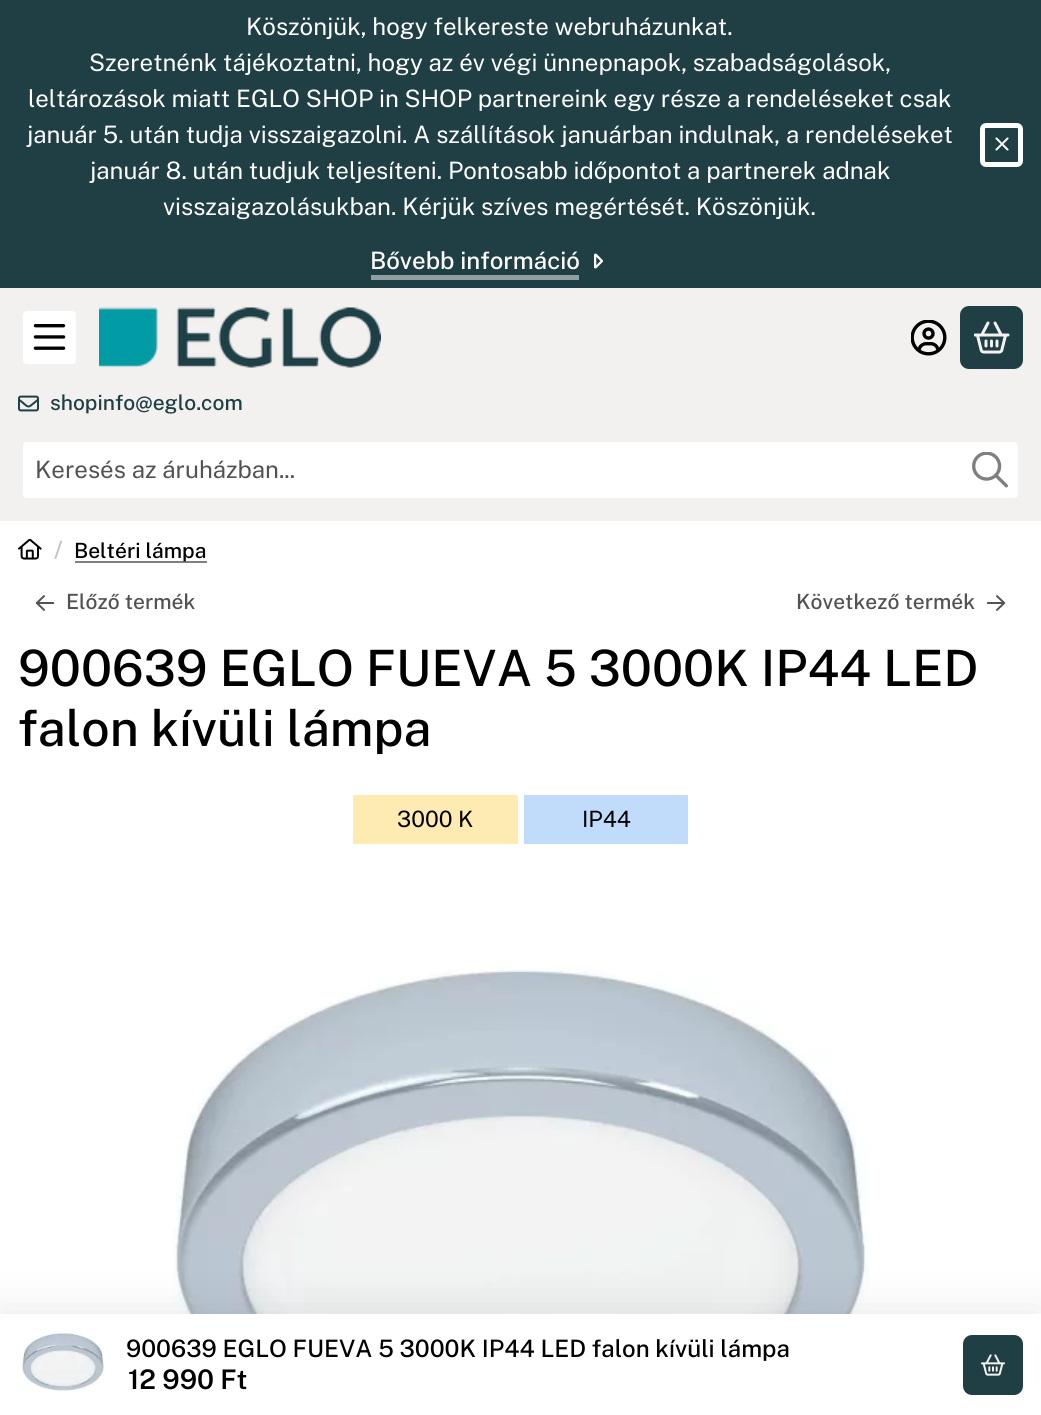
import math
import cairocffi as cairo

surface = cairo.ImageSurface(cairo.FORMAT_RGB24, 1041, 1415)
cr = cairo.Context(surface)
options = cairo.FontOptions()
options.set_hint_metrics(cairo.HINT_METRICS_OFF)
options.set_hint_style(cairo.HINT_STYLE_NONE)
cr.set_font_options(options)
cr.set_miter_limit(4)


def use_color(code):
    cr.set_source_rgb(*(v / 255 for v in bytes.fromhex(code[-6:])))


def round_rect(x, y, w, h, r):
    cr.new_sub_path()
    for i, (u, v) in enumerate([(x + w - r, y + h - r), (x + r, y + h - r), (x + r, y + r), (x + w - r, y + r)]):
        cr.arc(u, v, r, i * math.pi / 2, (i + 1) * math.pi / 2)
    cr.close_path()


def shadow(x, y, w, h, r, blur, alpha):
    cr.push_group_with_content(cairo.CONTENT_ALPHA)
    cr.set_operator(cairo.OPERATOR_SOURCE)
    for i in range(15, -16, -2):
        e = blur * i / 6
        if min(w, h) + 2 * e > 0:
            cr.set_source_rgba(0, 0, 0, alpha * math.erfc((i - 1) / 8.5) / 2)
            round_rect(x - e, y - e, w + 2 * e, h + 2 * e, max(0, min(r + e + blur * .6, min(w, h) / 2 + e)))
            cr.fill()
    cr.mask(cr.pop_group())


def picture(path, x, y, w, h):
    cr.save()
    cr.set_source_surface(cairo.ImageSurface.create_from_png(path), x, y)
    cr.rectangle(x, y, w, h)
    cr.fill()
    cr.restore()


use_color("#ffffff")
cr.paint()
use_color("#1f3f45")
cr.rectangle(0, 0, 1041, 288)
cr.fill()
cr.select_font_face("Public Sans")
cr.set_font_size(24)
use_color("#ffffff")
cr.move_to(246, 35)
cr.show_text("Köszönjük, hogy felkereste webruházunkat.")
cr.move_to(89, 71)
cr.show_text("Szeretnénk tájékoztatni, hogy az év végi ünnepnapok, szabadságolások,")
cr.move_to(28, 107)
cr.show_text("leltározások miatt EGLO SHOP in SHOP partnereink egy része a rendeléseket csak")
cr.move_to(27, 143)
cr.show_text("január 5. után tudja visszaigazolni. A szállítások januárban indulnak, a rendeléseket")
cr.move_to(90, 179)
cr.show_text("január 8. után tudjuk teljesíteni. Pontosabb időpontot a partnerek adnak")
cr.move_to(163, 215)
cr.show_text("visszaigazolásukban. Kérjük szíves megértését. Köszönjük.")
cr.select_font_face("Public Sans Medium")
cr.move_to(370, 269)
cr.show_text("Bővebb információ")
use_color("#8f9fa2")
cr.rectangle(371, 275, 208, 5)
cr.fill()
picture("img1.png", 594, 253, 9, 16)
round_rect(982.5, 125.5, 38, 39, 3.5)
use_color("#ffffff")
cr.set_line_width(5)
cr.stroke()
picture("img2.png", 995, 137, 14, 14)
use_color("#f2f1f0")
cr.rectangle(0, 288, 1041, 233)
cr.fill()
use_color("#ffffff")
round_rect(20.5, 308.5, 58, 58, 6.5)
cr.fill_preserve()
use_color("#f2f1f0")
cr.stroke()
picture("img3.png", 33, 324, 33, 26)
picture("img4.png", 99, 307, 282, 61)
picture("img5.png", 911, 320, 36, 36)
use_color("#1f3f45")
round_rect(962.5, 308.5, 58, 58, 6.5)
cr.fill_preserve()
cr.stroke()
picture("img6.png", 974, 321, 36, 33)
picture("img7.png", 18, 395, 21, 17)
cr.set_font_size(21)
cr.move_to(50, 410)
cr.show_text("shopinfo@eglo.com")
use_color("#ffffff")
round_rect(20.5, 439.5, 1000, 61, 6.5)
cr.fill_preserve()
use_color("#f2f1f0")
cr.stroke()
cr.select_font_face("Public Sans")
cr.set_font_size(24)
use_color("#525252")
cr.move_to(35, 478)
cr.show_text("Keresés az áruházban...")
picture("img8.png", 972, 452, 36, 36)
picture("img9.png", 18, 539, 24, 21)
cr.select_font_face("Public Sans Medium")
use_color("#c2c2c2")
cr.move_to(54, 558)
cr.show_text("/")
use_color("#808080")
cr.rectangle(75, 561, 132, 2)
cr.fill()
cr.set_font_size(21)
use_color("#000000")
cr.move_to(74, 558)
cr.show_text("Beltéri lámpa")
picture("img10.png", 35, 595, 20, 16)
use_color("#525252")
cr.move_to(66, 609)
cr.show_text("Előző termék")
cr.move_to(796, 609)
cr.show_text("Következő termék")
picture("img11.png", 986, 595, 20, 16)
cr.set_font_size(50.1)
use_color("#000000")
cr.move_to(18, 686)
cr.show_text("900639 EGLO FUEVA 5 3000K IP44 LED")
cr.move_to(18, 746)
cr.show_text("falon kívüli lámpa")
cr.save()
cr.rectangle(353, 795, 165, 50)
cr.clip()
use_color("#feebb2")
cr.new_path()
cr.move_to(352, 796)
cr.line_to(353, 795)
cr.line_to(517, 795)
cr.line_to(518, 796)
cr.line_to(518, 844)
cr.line_to(517, 844)
cr.line_to(353, 844)
cr.line_to(352, 844)
cr.close_path()
cr.fill()
cr.restore()
cr.select_font_face("Public Sans")
cr.set_font_size(22.5)
cr.move_to(397, 827)
cr.show_text("3000 K")
use_color("#c0dcfa")
cr.new_path()
cr.move_to(524, 796)
cr.line_to(524, 795)
cr.line_to(688, 795)
cr.line_to(688, 796)
cr.line_to(688, 844)
cr.line_to(524, 844)
cr.close_path()
cr.fill()
use_color("#000000")
cr.move_to(582, 827)
cr.show_text("IP44")
picture("img12.png", 173, 965, 696, 349)
use_color("#000000")
shadow(0, 1314, 1041, 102, 0, 22.5, 0.1)
use_color("#ffffff")
cr.rectangle(0, 1314, 1041, 101)
cr.fill()
picture("img13.png", 21, 1332, 84, 60)
cr.select_font_face("Public Sans Medium")
cr.set_font_size(24)
use_color("#000000")
cr.move_to(126, 1357)
cr.show_text("900639 EGLO FUEVA 5 3000K IP44 LED falon kívüli lámpa")
cr.select_font_face("Public Sans SemiBold")
cr.set_font_size(27)
cr.move_to(128, 1389)
cr.show_text("12 990 Ft")
use_color("#1f3f45")
round_rect(965.5, 1337.5, 55, 55, 6.5)
cr.fill_preserve()
cr.stroke()
picture("img14.png", 981, 1354, 24, 22)
surface.write_to_png("result.png")
